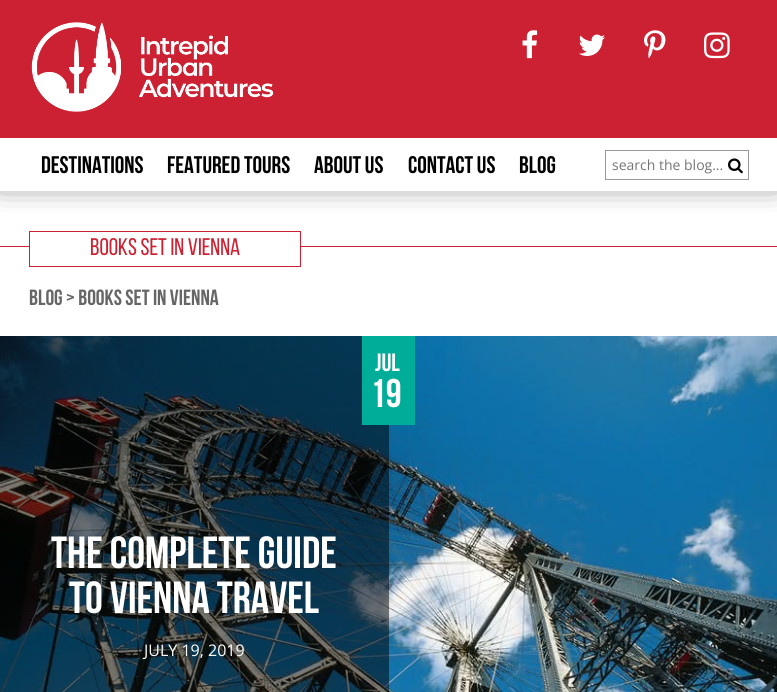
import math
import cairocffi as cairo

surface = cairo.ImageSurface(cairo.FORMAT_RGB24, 777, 692)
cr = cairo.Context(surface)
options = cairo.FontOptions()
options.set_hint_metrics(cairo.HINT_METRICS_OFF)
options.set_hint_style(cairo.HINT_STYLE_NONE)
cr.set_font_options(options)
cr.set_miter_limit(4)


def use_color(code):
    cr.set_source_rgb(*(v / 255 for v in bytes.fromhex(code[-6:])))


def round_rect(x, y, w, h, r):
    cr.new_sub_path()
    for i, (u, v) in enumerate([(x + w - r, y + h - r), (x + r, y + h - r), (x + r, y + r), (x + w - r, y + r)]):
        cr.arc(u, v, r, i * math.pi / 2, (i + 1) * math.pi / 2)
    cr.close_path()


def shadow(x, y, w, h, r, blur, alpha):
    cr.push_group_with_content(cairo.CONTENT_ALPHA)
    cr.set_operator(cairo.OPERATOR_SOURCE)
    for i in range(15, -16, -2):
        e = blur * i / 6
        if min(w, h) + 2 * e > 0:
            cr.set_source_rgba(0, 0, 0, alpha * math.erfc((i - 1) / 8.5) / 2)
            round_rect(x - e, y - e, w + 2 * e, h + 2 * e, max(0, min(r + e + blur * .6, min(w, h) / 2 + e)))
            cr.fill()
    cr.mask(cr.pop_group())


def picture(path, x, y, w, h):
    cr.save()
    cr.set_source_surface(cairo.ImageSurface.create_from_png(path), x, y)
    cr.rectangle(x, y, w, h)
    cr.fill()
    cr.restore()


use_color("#ffffff")
cr.paint()
cr.save()
cr.rectangle(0, 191, 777, 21)
cr.clip()
use_color("#222222")
shadow(0, 123, 777, 53, 0, 17.5, 1)
cr.restore()
use_color("#cc2132")
cr.rectangle(0, 0, 777, 138)
cr.fill()
picture("img1.png", 31, 22, 243, 90)
picture("img2.png", 522, 30, 16, 29)
picture("img3.png", 579, 34, 26, 22)
picture("img4.png", 644, 30, 22, 29)
picture("img5.png", 704, 32, 26, 27)
cr.select_font_face("Bebas Neue", cairo.FONT_SLANT_NORMAL, cairo.FONT_WEIGHT_BOLD)
cr.set_font_size(24)
use_color("#000000")
cr.move_to(41, 173)
cr.show_text("DESTINATIONS")
cr.move_to(167, 173)
cr.show_text("FEATURED TOURS")
cr.move_to(314, 173)
cr.show_text("ABOUT US")
cr.move_to(408, 173)
cr.show_text("CONTACT US")
cr.move_to(519, 173)
cr.show_text("BLOG")
cr.rectangle(605.5, 150.5, 143, 29)
use_color("#999999")
cr.set_line_width(1)
cr.stroke()
cr.select_font_face("Open Sans")
cr.set_font_size(14)
use_color("#757575")
cr.move_to(612, 170)
cr.show_text("search the blog...")
picture("img6.png", 728, 158, 15, 16)
use_color("#cc2132")
cr.rectangle(0, 246, 777, 1)
cr.fill()
use_color("#ffffff")
cr.rectangle(30, 246, 270, 1)
cr.fill()
cr.rectangle(29.5, 231.5, 271, 35)
use_color("#cc2132")
cr.stroke()
cr.select_font_face("Bebas Neue")
cr.set_font_size(24)
cr.move_to(90, 255)
cr.show_text("BOOKS SET IN VIENNA")
cr.select_font_face("Bebas Neue", cairo.FONT_SLANT_NORMAL, cairo.FONT_WEIGHT_BOLD)
cr.set_font_size(22)
use_color("#666666")
cr.move_to(29, 305)
cr.show_text("BLOG > BOOKS SET IN VIENNA")
picture("img7.png", 0, 336, 777, 356)
cr.set_source_rgba(0, 0, 0, 0.5)
cr.rectangle(0, 336, 389, 356)
cr.fill()
use_color("#00ad99")
cr.rectangle(362, 336, 53, 89)
cr.fill()
cr.set_font_size(25)
use_color("#ffffff")
cr.move_to(375, 371)
cr.show_text("Jul")
cr.set_font_size(40)
cr.move_to(370, 407)
cr.show_text("19")
cr.set_font_size(45)
cr.move_to(51, 568)
cr.show_text("THE COMPLETE GUIDE")
cr.move_to(69, 613)
cr.show_text("TO VIENNA TRAVEL")
cr.select_font_face("Open Sans")
cr.set_font_size(16)
cr.move_to(144, 656)
cr.show_text("JULY 19, 2019")
surface.write_to_png("result.png")
